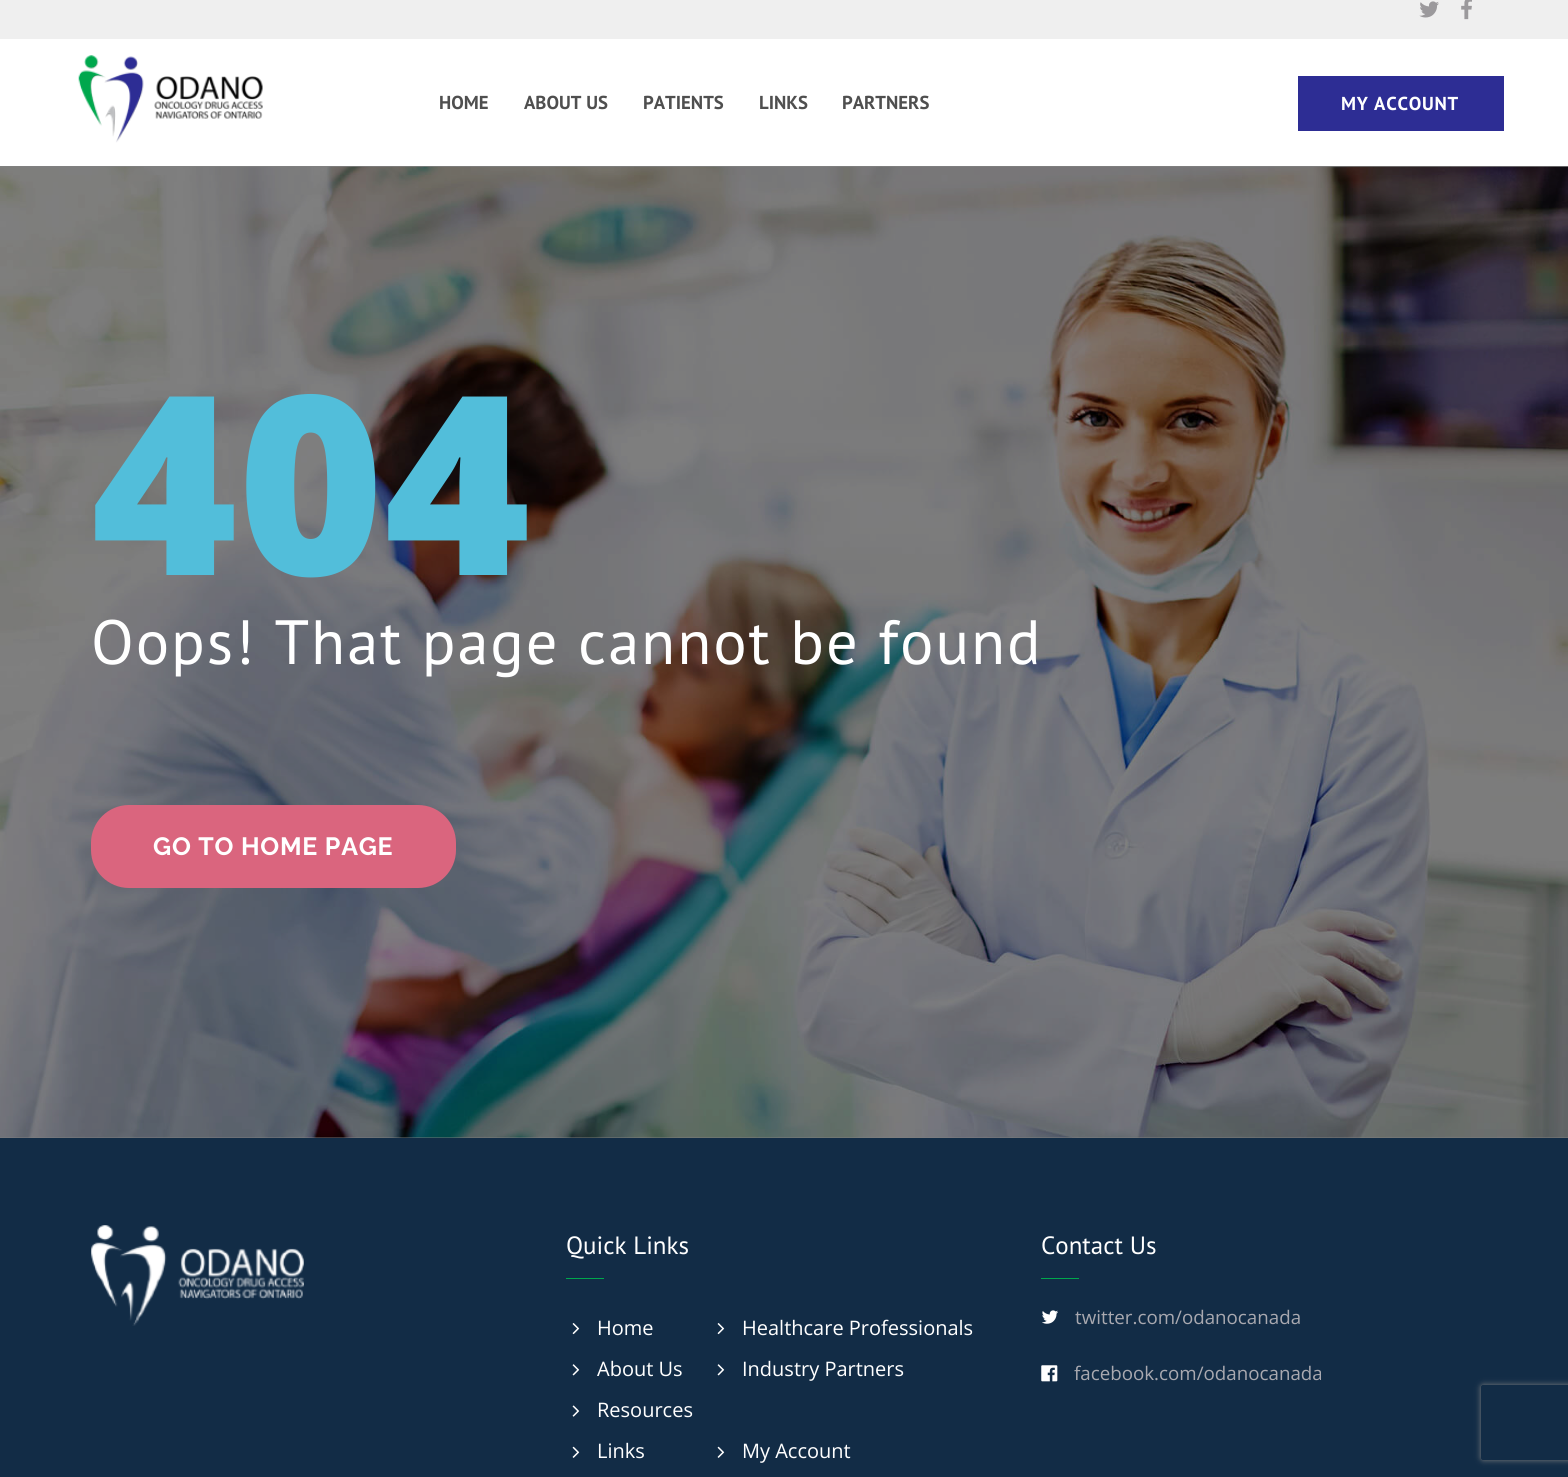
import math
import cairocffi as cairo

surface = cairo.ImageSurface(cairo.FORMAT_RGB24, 1568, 1477)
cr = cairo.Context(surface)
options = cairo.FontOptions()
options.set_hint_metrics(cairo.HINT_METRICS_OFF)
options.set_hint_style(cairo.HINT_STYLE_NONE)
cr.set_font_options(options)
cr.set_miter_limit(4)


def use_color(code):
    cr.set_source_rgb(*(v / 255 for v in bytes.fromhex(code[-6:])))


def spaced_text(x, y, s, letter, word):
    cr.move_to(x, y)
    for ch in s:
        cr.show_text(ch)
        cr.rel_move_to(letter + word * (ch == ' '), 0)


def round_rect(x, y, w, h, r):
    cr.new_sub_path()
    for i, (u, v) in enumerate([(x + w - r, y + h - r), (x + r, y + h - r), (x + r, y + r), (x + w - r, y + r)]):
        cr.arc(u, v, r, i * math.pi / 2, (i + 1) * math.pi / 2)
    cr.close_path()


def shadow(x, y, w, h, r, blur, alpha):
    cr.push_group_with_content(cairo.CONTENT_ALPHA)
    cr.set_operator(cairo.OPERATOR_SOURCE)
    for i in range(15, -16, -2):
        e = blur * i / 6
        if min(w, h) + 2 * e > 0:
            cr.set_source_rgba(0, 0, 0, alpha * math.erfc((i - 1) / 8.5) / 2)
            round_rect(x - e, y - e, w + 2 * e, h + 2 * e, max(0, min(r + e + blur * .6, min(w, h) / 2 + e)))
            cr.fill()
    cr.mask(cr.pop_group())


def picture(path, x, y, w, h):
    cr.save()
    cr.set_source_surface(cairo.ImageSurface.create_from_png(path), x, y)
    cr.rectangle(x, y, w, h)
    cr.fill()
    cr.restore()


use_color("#ffffff")
cr.paint()
use_color("#808080")
cr.rectangle(0, 166, 1568, 972)
cr.fill()
use_color("#efefef")
cr.rectangle(0, 0, 1568, 39)
cr.fill()
picture("img1.png", 1419, 1, 20, 17)
picture("img2.png", 1461, 0, 11, 20)
picture("img3.png", 78, 55, 185, 88)
cr.select_font_face("PT Sans", cairo.FONT_SLANT_NORMAL, cairo.FONT_WEIGHT_BOLD)
cr.set_font_size(18.75)
use_color("#4f4f4f")
cr.move_to(439, 109)
cr.show_text("HOME")
cr.move_to(524, 109)
cr.show_text("ABOUT US")
cr.move_to(643, 109)
cr.show_text("PATIENTS")
cr.move_to(759, 109)
cr.show_text("LINKS")
cr.move_to(842, 109)
cr.show_text("PARTNERS")
use_color("#2d2d94")
cr.rectangle(1298, 76, 206, 55)
cr.fill()
use_color("#ffffff")
spaced_text(1341, 110, "MY ACCOUNT", 0.75, 0)
picture("img4.png", 0, 166, 1568, 972)
cr.select_font_face("Open Sans ExtraBold")
cr.set_font_size(250)
use_color("#52beda")
cr.move_to(91, 575)
cr.show_text("404")
cr.select_font_face("PT Sans")
cr.set_font_size(62.5)
use_color("#ffffff")
spaced_text(91, 664, "Oops! That page cannot be found", 1.9, 0)
use_color("#da657e")
round_rect(91, 805, 365, 83, 38)
cr.fill()
cr.select_font_face("Raleway", cairo.FONT_SLANT_NORMAL, cairo.FONT_WEIGHT_BOLD)
cr.set_font_size(25)
use_color("#ffffff")
spaced_text(153, 855, "GO TO HOME PAGE", 0.75, 0)
use_color("#122c46")
cr.rectangle(0, 1138, 1568, 339)
cr.fill()
picture("img5.png", 91, 1225, 213, 101)
cr.select_font_face("PT Sans")
use_color("#ffffff")
cr.move_to(566, 1254)
cr.show_text("Quick Links")
use_color("#00a74d")
cr.rectangle(566, 1278, 38, 1)
cr.fill()
picture("img6.png", 572, 1323, 8, 12)
cr.select_font_face("Open Sans")
cr.set_font_size(20)
use_color("#ffffff")
cr.move_to(597, 1335)
cr.show_text("Home")
picture("img6.png", 717, 1323, 8, 12)
cr.move_to(742, 1335)
cr.show_text("Healthcare Professionals")
picture("img7.png", 572, 1364, 8, 12)
cr.move_to(597, 1376)
cr.show_text("About Us")
picture("img7.png", 717, 1364, 8, 12)
cr.move_to(742, 1376)
cr.show_text("Industry Partners")
picture("img8.png", 572, 1405, 8, 12)
cr.move_to(597, 1417)
cr.show_text("Resources")
picture("img9.png", 572, 1446, 8, 12)
cr.move_to(597, 1458)
cr.show_text("Links")
picture("img9.png", 717, 1446, 8, 12)
cr.move_to(742, 1458)
cr.show_text("My Account")
cr.select_font_face("PT Sans")
cr.set_font_size(25)
cr.move_to(1041, 1254)
cr.show_text("Contact Us")
use_color("#00a74d")
cr.rectangle(1041, 1278, 38, 1)
cr.fill()
picture("img10.png", 1042, 1310, 16, 14)
cr.select_font_face("Open Sans")
cr.set_font_size(18.75)
use_color("#a9a9b0")
cr.move_to(1075, 1324)
cr.show_text("twitter.com/odanocanada")
picture("img11.png", 1041, 1365, 17, 17)
cr.move_to(1074, 1380)
cr.show_text("facebook.com/odanocanada")
cr.save()
cr.set_fill_rule(cairo.FILL_RULE_EVEN_ODD)
cr.new_path()
cr.move_to(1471, 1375)
cr.line_to(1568, 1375)
cr.line_to(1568, 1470)
cr.line_to(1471, 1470)
cr.close_path()
cr.move_to(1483.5, 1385)
cr.line_to(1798.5, 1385)
cr.curve_to(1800, 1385, 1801, 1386, 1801, 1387.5)
cr.line_to(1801, 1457.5)
cr.curve_to(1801, 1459, 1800, 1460, 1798.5, 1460)
cr.line_to(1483.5, 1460)
cr.curve_to(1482, 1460, 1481, 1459, 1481, 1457.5)
cr.line_to(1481, 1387.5)
cr.curve_to(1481, 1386, 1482, 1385, 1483.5, 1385)
cr.close_path()
cr.clip()
use_color("#808080")
shadow(1481, 1385, 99, 75, 2.5, 3, 1)
cr.restore()
surface.write_to_png("result.png")
